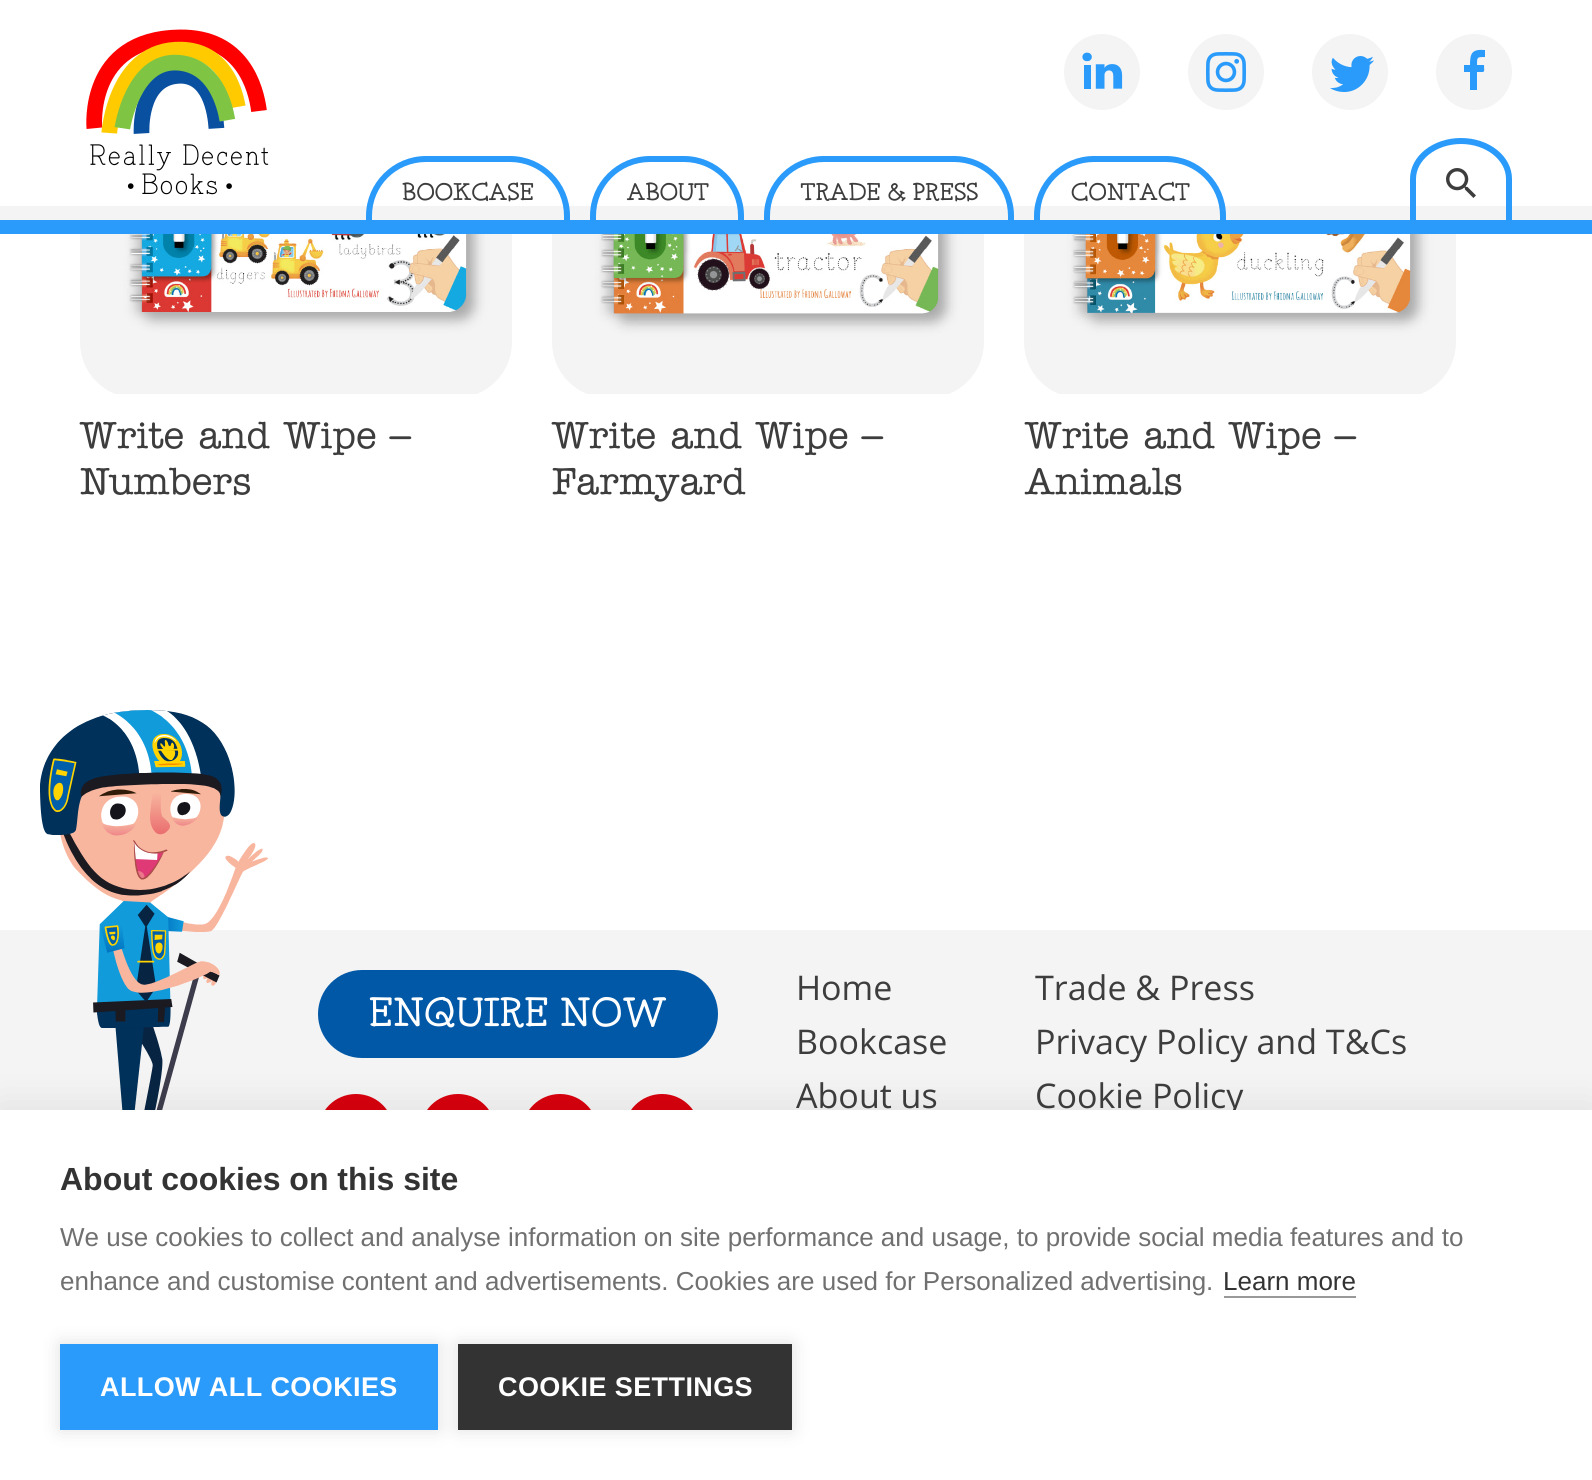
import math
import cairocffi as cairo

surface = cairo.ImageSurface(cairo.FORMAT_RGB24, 1592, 1480)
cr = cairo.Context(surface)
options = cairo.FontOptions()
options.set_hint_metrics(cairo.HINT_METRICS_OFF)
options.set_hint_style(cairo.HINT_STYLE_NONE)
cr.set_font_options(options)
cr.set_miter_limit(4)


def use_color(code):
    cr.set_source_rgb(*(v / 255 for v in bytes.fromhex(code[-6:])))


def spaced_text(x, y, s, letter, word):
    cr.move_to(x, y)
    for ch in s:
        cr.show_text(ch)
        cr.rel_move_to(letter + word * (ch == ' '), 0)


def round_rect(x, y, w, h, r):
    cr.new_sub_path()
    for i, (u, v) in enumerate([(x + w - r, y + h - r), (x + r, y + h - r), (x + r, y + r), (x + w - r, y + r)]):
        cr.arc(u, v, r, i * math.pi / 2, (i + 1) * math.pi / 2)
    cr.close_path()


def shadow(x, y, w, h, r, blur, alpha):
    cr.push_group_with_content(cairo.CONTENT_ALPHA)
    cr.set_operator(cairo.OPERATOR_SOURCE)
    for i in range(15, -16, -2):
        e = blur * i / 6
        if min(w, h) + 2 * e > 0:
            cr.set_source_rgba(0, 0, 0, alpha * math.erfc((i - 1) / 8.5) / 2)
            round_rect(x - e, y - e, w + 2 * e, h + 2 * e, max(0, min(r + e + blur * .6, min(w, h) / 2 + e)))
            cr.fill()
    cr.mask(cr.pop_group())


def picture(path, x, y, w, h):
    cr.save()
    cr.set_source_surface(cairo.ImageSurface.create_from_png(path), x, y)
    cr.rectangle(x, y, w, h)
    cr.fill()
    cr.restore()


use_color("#ffffff")
cr.paint()
use_color("#2a9bfb")
cr.rectangle(0, 220, 1592, 14)
cr.fill()
picture("img1.png", 86, 29, 183, 166)
picture("img2.png", 1064, 34, 76, 76)
picture("img3.png", 1188, 34, 76, 76)
picture("img4.png", 1312, 34, 76, 76)
use_color("#f4f4f4")
cr.arc(1474, 72, 38, 0, 2 * math.pi)
cr.fill()
use_color("#2a9bfb")
cr.new_path()
cr.move_to(1477, 90)
cr.line_to(1470, 90)
cr.line_to(1470, 72)
cr.line_to(1464, 72)
cr.line_to(1464, 65)
cr.line_to(1470, 65)
cr.curve_to(1470, 53, 1472, 49, 1485, 50)
cr.line_to(1485, 57)
cr.curve_to(1477, 57, 1477, 57, 1477, 65)
cr.line_to(1484, 65)
cr.curve_to(1484, 73, 1486, 72, 1477, 72)
cr.close_path()
cr.fill()
use_color("#f4f4f4")
cr.rectangle(0, 206, 1592, 14)
cr.fill()
use_color("#2a9bfb")
cr.set_fill_rule(cairo.FILL_RULE_EVEN_ODD)
cr.new_path()
cr.move_to(426, 156)
cr.line_to(510, 156)
cr.curve_to(543, 156, 570, 183, 570, 216)
cr.line_to(570, 220)
cr.line_to(366, 220)
cr.line_to(366, 216)
cr.curve_to(366, 183, 393, 156, 426, 156)
cr.close_path()
cr.move_to(426, 162)
cr.line_to(510, 162)
cr.curve_to(540, 162, 564, 186, 564, 216)
cr.line_to(564, 220)
cr.line_to(372, 220)
cr.line_to(372, 216)
cr.curve_to(372, 186, 396, 162, 426, 162)
cr.close_path()
cr.fill()
cr.select_font_face("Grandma", cairo.FONT_SLANT_NORMAL, cairo.FONT_WEIGHT_BOLD)
cr.set_font_size(26)
use_color("#3d3d3d")
cr.move_to(402, 200)
cr.show_text("BOOKCASE")
use_color("#2a9bfb")
cr.new_path()
cr.move_to(650, 156)
cr.line_to(684, 156)
cr.curve_to(717, 156, 744, 183, 744, 216)
cr.line_to(744, 220)
cr.line_to(590, 220)
cr.line_to(590, 216)
cr.curve_to(590, 183, 617, 156, 650, 156)
cr.close_path()
cr.move_to(650, 162)
cr.line_to(684, 162)
cr.curve_to(714, 162, 738, 186, 738, 216)
cr.line_to(738, 220)
cr.line_to(596, 220)
cr.line_to(596, 216)
cr.curve_to(596, 186, 620, 162, 650, 162)
cr.close_path()
cr.fill()
use_color("#3d3d3d")
cr.move_to(627, 200)
cr.show_text("ABOUT")
use_color("#2a9bfb")
cr.new_path()
cr.move_to(824, 156)
cr.line_to(954, 156)
cr.curve_to(987, 156, 1014, 183, 1014, 216)
cr.line_to(1014, 220)
cr.line_to(764, 220)
cr.line_to(764, 216)
cr.curve_to(764, 183, 791, 156, 824, 156)
cr.close_path()
cr.move_to(824, 162)
cr.line_to(954, 162)
cr.curve_to(984, 162, 1008, 186, 1008, 216)
cr.line_to(1008, 220)
cr.line_to(770, 220)
cr.line_to(770, 216)
cr.curve_to(770, 186, 794, 162, 824, 162)
cr.close_path()
cr.fill()
use_color("#3d3d3d")
cr.move_to(801, 200)
cr.show_text("TRADE & PRESS")
use_color("#2a9bfb")
cr.new_path()
cr.move_to(1094, 156)
cr.line_to(1166, 156)
cr.curve_to(1199, 156, 1226, 183, 1226, 216)
cr.line_to(1226, 220)
cr.line_to(1034, 220)
cr.line_to(1034, 216)
cr.curve_to(1034, 183, 1061, 156, 1094, 156)
cr.close_path()
cr.move_to(1094, 162)
cr.line_to(1166, 162)
cr.curve_to(1196, 162, 1220, 186, 1220, 216)
cr.line_to(1220, 220)
cr.line_to(1040, 220)
cr.line_to(1040, 216)
cr.curve_to(1040, 186, 1064, 162, 1094, 162)
cr.close_path()
cr.fill()
use_color("#3d3d3d")
cr.move_to(1071, 200)
cr.show_text("CONTACT")
picture("img5.png", 1446, 168, 30, 30)
use_color("#2a9bfb")
cr.new_path()
cr.move_to(1461, 138)
cr.curve_to(1489, 138, 1512, 156, 1512, 179)
cr.line_to(1512, 220)
cr.line_to(1410, 220)
cr.line_to(1410, 179)
cr.curve_to(1410, 156, 1433, 138, 1461, 138)
cr.close_path()
cr.move_to(1461, 144)
cr.curve_to(1486, 144, 1506, 160, 1506, 179)
cr.line_to(1506, 220)
cr.line_to(1416, 220)
cr.line_to(1416, 179)
cr.curve_to(1416, 160, 1436, 144, 1461, 144)
cr.close_path()
cr.fill()
picture("img6.png", 80, 234, 432, 160)
cr.select_font_face("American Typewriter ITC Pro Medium")
cr.set_font_size(38)
use_color("#3d3d3d")
cr.move_to(80, 448)
cr.show_text("Write and Wipe –")
cr.move_to(80, 494)
cr.show_text("Numbers")
picture("img7.png", 552, 234, 432, 160)
cr.move_to(552, 448)
cr.show_text("Write and Wipe –")
cr.move_to(552, 494)
cr.show_text("Farmyard")
picture("img8.png", 1024, 234, 432, 160)
cr.move_to(1025, 448)
cr.show_text("Write and Wipe –")
cr.move_to(1025, 494)
cr.show_text("Animals")
use_color("#f4f4f4")
cr.rectangle(0, 930, 1592, 180)
cr.fill()
picture("img9.png", 40, 710, 228, 400)
use_color("#0058a7")
round_rect(318, 970, 400, 88, 44)
cr.fill()
cr.select_font_face("Grandma", cairo.FONT_SLANT_NORMAL, cairo.FONT_WEIGHT_BOLD)
cr.set_font_size(44)
use_color("#ffffff")
cr.move_to(369, 1026)
cr.show_text("ENQUIRE NOW")
cr.select_font_face("Open Sans")
cr.set_font_size(34)
use_color("#3d3d3d")
cr.move_to(796, 1000)
cr.show_text("Home")
cr.move_to(796, 1054)
cr.show_text("Bookcase")
cr.move_to(796, 1108)
cr.show_text("About us")
cr.move_to(1035, 1000)
cr.show_text("Trade & Press")
cr.move_to(1035, 1054)
cr.show_text("Privacy Policy and T&Cs")
cr.move_to(1035, 1108)
cr.show_text("Cookie Policy")
picture("img10.png", 325, 1094, 62, 16)
picture("img10.png", 427, 1094, 62, 16)
picture("img10.png", 529, 1094, 62, 16)
use_color("#d9000d")
cr.arc(662, 1132, 38, 0, 2 * math.pi)
cr.fill()
use_color("#000000")
shadow(0, 1110, 1592, 370, 0, 20, 0.1)
use_color("#ffffff")
cr.rectangle(0, 1110, 1592, 370)
cr.fill()
cr.select_font_face("Liberation Sans", cairo.FONT_SLANT_NORMAL, cairo.FONT_WEIGHT_BOLD)
cr.set_font_size(32)
use_color("#333333")
cr.move_to(60, 1190)
cr.show_text("About cookies on this site")
cr.select_font_face("Liberation Sans")
cr.set_font_size(26)
use_color("#707070")
cr.move_to(60, 1246)
cr.show_text("We use cookies to collect and analyse information on site performance and usage, to provide social media features and to")
cr.move_to(60, 1290)
cr.show_text("enhance and customise content and advertisements. Cookies are used for Personalized advertising.")
use_color("#333333")
cr.move_to(1223, 1290)
cr.show_text("Learn more")
use_color("#999999")
cr.rectangle(1224, 1296, 132, 2)
cr.fill()
use_color("#000000")
shadow(60, 1344, 378, 86, 0, 10, 0.12)
use_color("#2a9bfb")
cr.rectangle(60, 1344, 378, 86)
cr.fill()
cr.select_font_face("Liberation Sans", cairo.FONT_SLANT_NORMAL, cairo.FONT_WEIGHT_BOLD)
cr.set_font_size(27)
use_color("#ffffff")
spaced_text(100, 1396, "ALLOW ALL COOKIES", 0.4, 0)
use_color("#000000")
shadow(458, 1344, 334, 86, 0, 10, 0.12)
use_color("#333333")
cr.rectangle(458, 1344, 334, 86)
cr.fill()
use_color("#ffffff")
spaced_text(498, 1396, "COOKIE SETTINGS", 0.4, 0)
surface.write_to_png("result.png")
